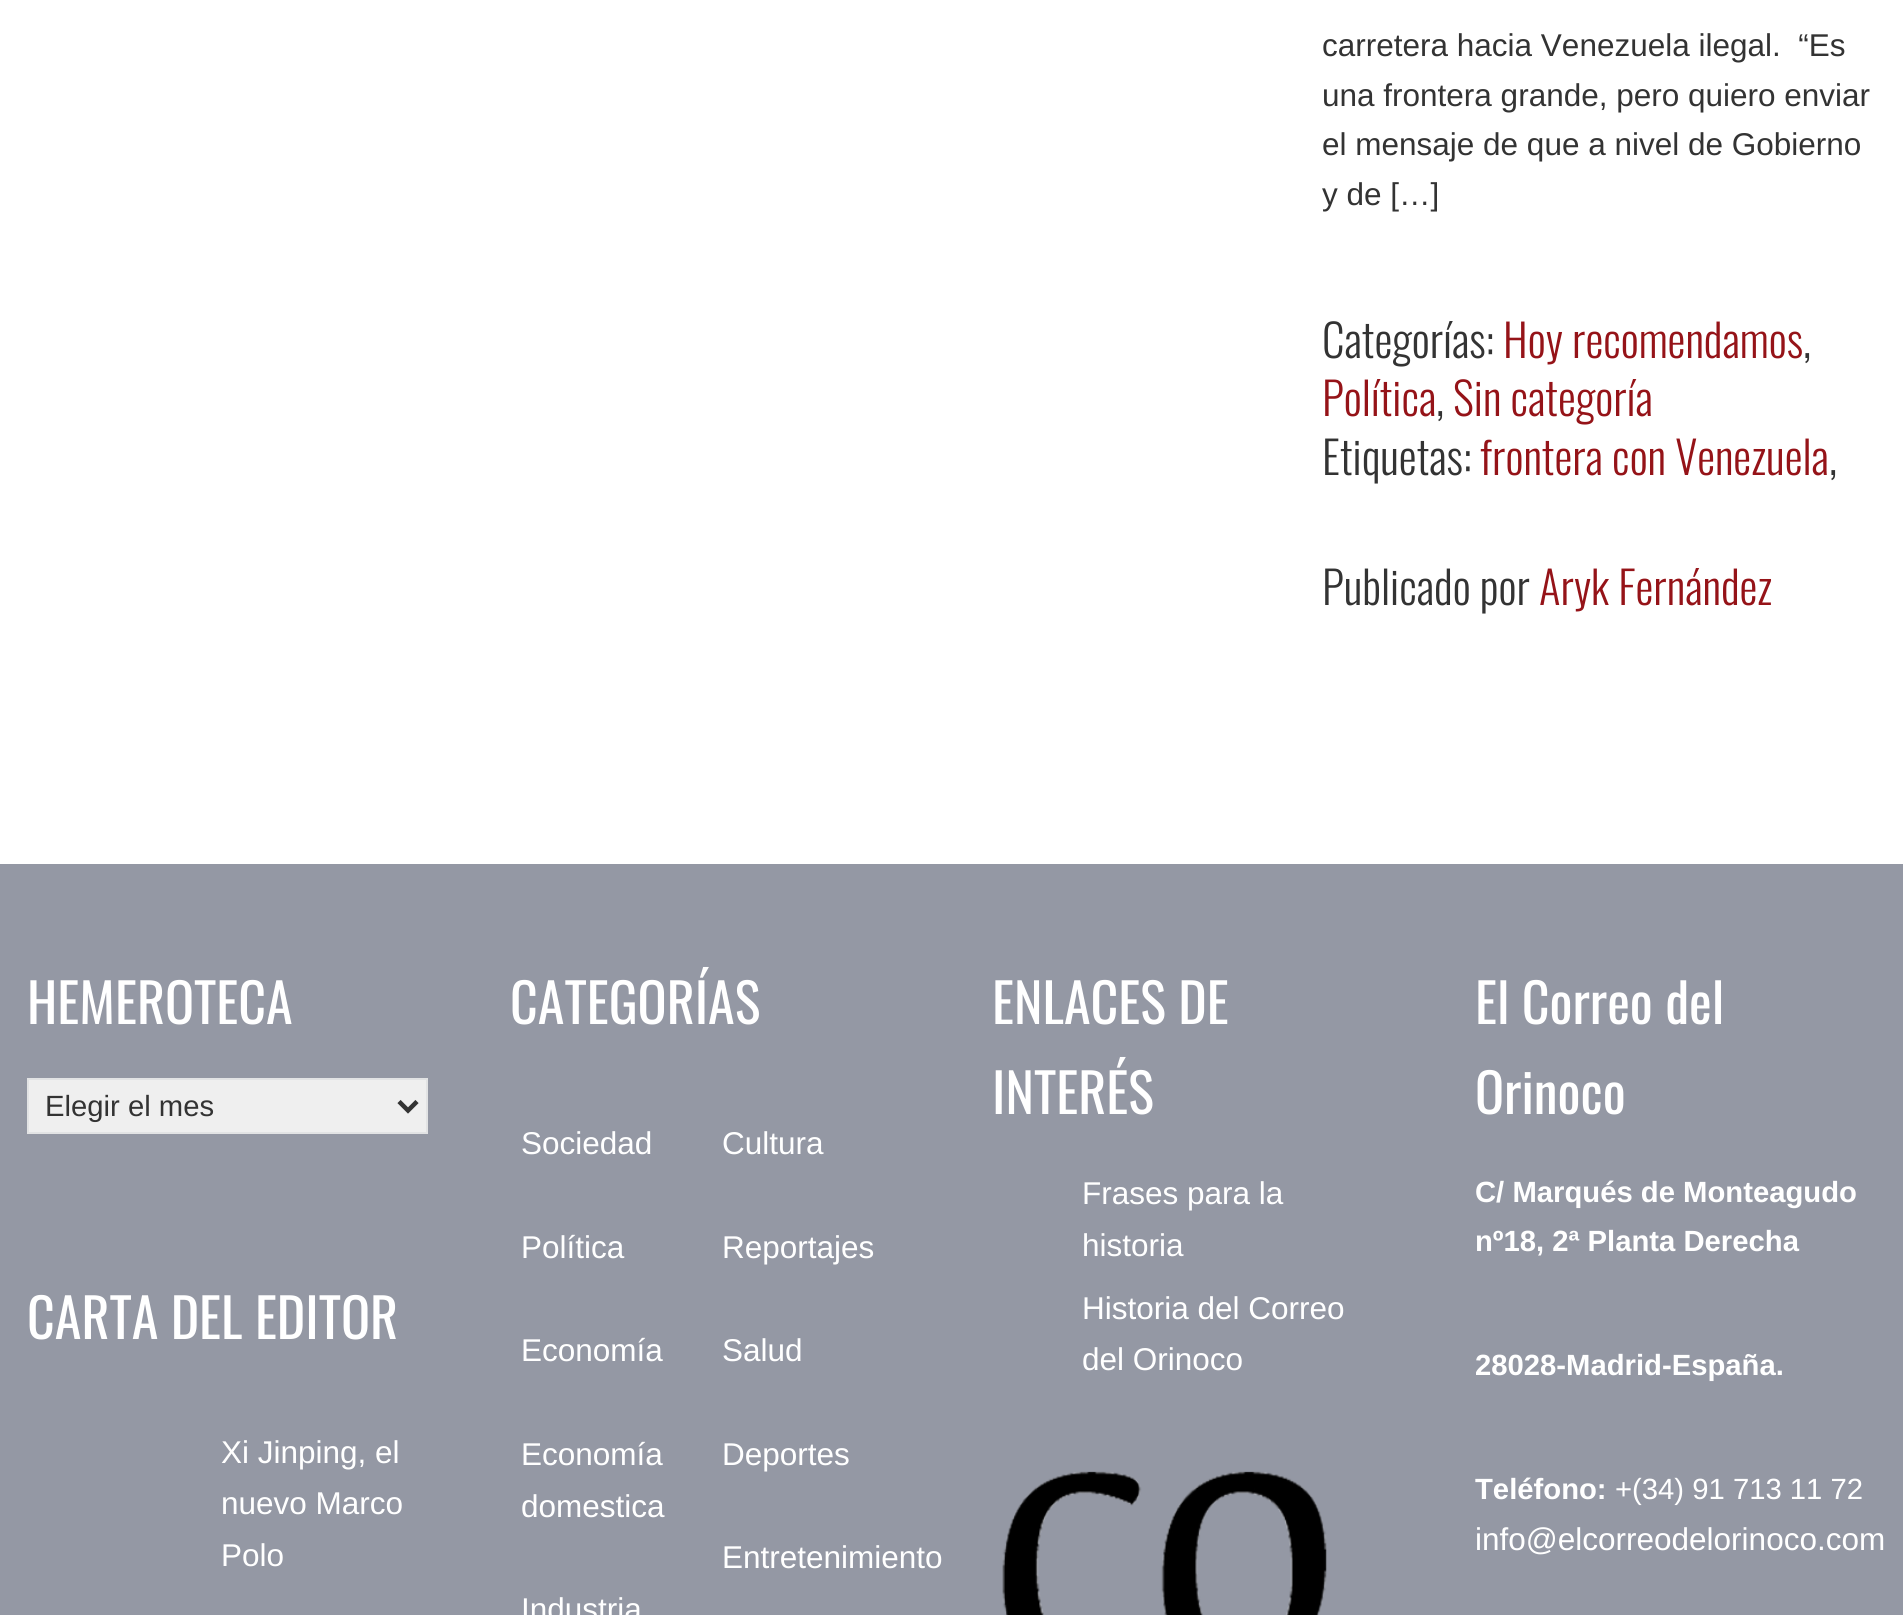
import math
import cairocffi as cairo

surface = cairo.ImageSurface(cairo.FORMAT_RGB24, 1903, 1615)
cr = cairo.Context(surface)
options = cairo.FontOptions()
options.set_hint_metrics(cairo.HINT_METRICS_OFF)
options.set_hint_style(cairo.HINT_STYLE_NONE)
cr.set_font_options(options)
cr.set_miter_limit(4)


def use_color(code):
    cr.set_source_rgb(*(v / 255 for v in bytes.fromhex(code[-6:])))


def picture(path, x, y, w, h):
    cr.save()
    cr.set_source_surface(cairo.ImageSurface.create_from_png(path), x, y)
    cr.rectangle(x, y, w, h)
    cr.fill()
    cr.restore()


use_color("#ffffff")
cr.paint()
cr.select_font_face("Liberation Sans")
cr.set_font_size(31.5)
use_color("#333333")
cr.move_to(1322, 56)
cr.show_text("carretera hacia Venezuela ilegal.  “Es")
cr.move_to(1322, 106)
cr.show_text("una frontera grande, pero quiero enviar")
cr.move_to(1322, 155)
cr.show_text("el mensaje de que a nivel de Gobierno")
cr.move_to(1322, 205)
cr.show_text("y de […]")
cr.select_font_face("Oswald Light")
cr.set_font_size(45)
cr.move_to(1322, 358)
cr.show_text("Categorías:")
use_color("#951318")
cr.move_to(1503, 358)
cr.show_text("Hoy recomendamos")
use_color("#333333")
cr.move_to(1803, 358)
cr.show_text(",")
use_color("#951318")
cr.move_to(1322, 416)
cr.show_text("Política")
use_color("#333333")
cr.move_to(1436, 416)
cr.show_text(",")
use_color("#951318")
cr.move_to(1453, 416)
cr.show_text("Sin categoría")
use_color("#333333")
cr.move_to(1322, 475)
cr.show_text("Etiquetas:")
use_color("#951318")
cr.move_to(1480, 475)
cr.show_text("frontera con Venezuela")
use_color("#333333")
cr.move_to(1829, 475)
cr.show_text(",")
cr.move_to(1322, 605)
cr.show_text("Publicado por")
use_color("#951318")
cr.move_to(1539, 605)
cr.show_text("Aryk Fernández")
use_color("#9498a4")
cr.rectangle(0, 864, 1903, 751)
cr.fill()
cr.select_font_face("Oswald")
cr.set_font_size(54)
use_color("#ffffff")
cr.move_to(27, 1024)
cr.show_text("HEMEROTECA")
use_color("#efefef")
cr.rectangle(28, 1079, 399, 54)
cr.fill_preserve()
use_color("#e2e3e4")
cr.stroke()
cr.new_path()
cr.move_to(399, 1101.5)
cr.line_to(408, 1110.5)
cr.line_to(417, 1101.5)
use_color("#333333")
cr.set_line_width(4.5)
cr.stroke()
cr.select_font_face("Liberation Sans")
cr.set_font_size(29.25)
cr.move_to(45, 1116)
cr.show_text("Elegir el mes")
cr.select_font_face("Oswald")
cr.set_font_size(54)
use_color("#ffffff")
cr.move_to(27, 1339)
cr.show_text("CARTA DEL EDITOR")
cr.select_font_face("Liberation Sans")
cr.set_font_size(31.5)
cr.move_to(221, 1463)
cr.show_text("Xi Jinping, el")
cr.move_to(221, 1514)
cr.show_text("nuevo Marco")
cr.move_to(221, 1566)
cr.show_text("Polo")
cr.select_font_face("Oswald")
cr.set_font_size(54)
cr.move_to(510, 1024)
cr.show_text("CATEGORÍAS")
cr.select_font_face("Liberation Sans")
cr.set_font_size(31.5)
cr.move_to(521, 1154)
cr.show_text("Sociedad")
cr.move_to(521, 1258)
cr.show_text("Política")
cr.move_to(521, 1361)
cr.show_text("Economía")
cr.move_to(521, 1465)
cr.show_text("Economía")
cr.move_to(521, 1517)
cr.show_text("domestica")
cr.move_to(521, 1620)
cr.show_text("Industria")
cr.move_to(722, 1154)
cr.show_text("Cultura")
cr.move_to(722, 1258)
cr.show_text("Reportajes")
cr.move_to(722, 1361)
cr.show_text("Salud")
cr.move_to(722, 1465)
cr.show_text("Deportes")
cr.move_to(722, 1568)
cr.show_text("Entretenimiento")
cr.select_font_face("Oswald")
cr.set_font_size(54)
cr.move_to(992, 1024)
cr.show_text("ENLACES DE")
cr.move_to(992, 1114)
cr.show_text("INTERÉS")
cr.select_font_face("Liberation Sans")
cr.set_font_size(31.5)
cr.move_to(1082, 1204)
cr.show_text("Frases para la")
cr.move_to(1082, 1256)
cr.show_text("historia")
cr.move_to(1082, 1319)
cr.show_text("Historia del Correo")
cr.move_to(1082, 1370)
cr.show_text("del Orinoco")
picture("img1.png", 1002, 1471, 325, 144)
cr.select_font_face("Oswald")
cr.set_font_size(54)
cr.move_to(1475, 1024)
cr.show_text("El Correo del")
cr.move_to(1475, 1114)
cr.show_text("Orinoco")
cr.select_font_face("Liberation Sans", cairo.FONT_SLANT_NORMAL, cairo.FONT_WEIGHT_BOLD)
cr.set_font_size(29.25)
cr.move_to(1475, 1202)
cr.show_text("C/ Marqués de Monteagudo")
cr.move_to(1475, 1251)
cr.show_text("nº18, 2ª Planta Derecha")
cr.move_to(1475, 1375)
cr.show_text("28028-Madrid-España.")
cr.move_to(1475, 1499)
cr.show_text("Teléfono:")
cr.select_font_face("Liberation Sans")
cr.move_to(1615, 1499)
cr.show_text("+(34) 91 713 11 72")
cr.set_font_size(31.5)
cr.move_to(1475, 1550)
cr.show_text("info@elcorreodelorinoco.com")
surface.write_to_png("result.png")
